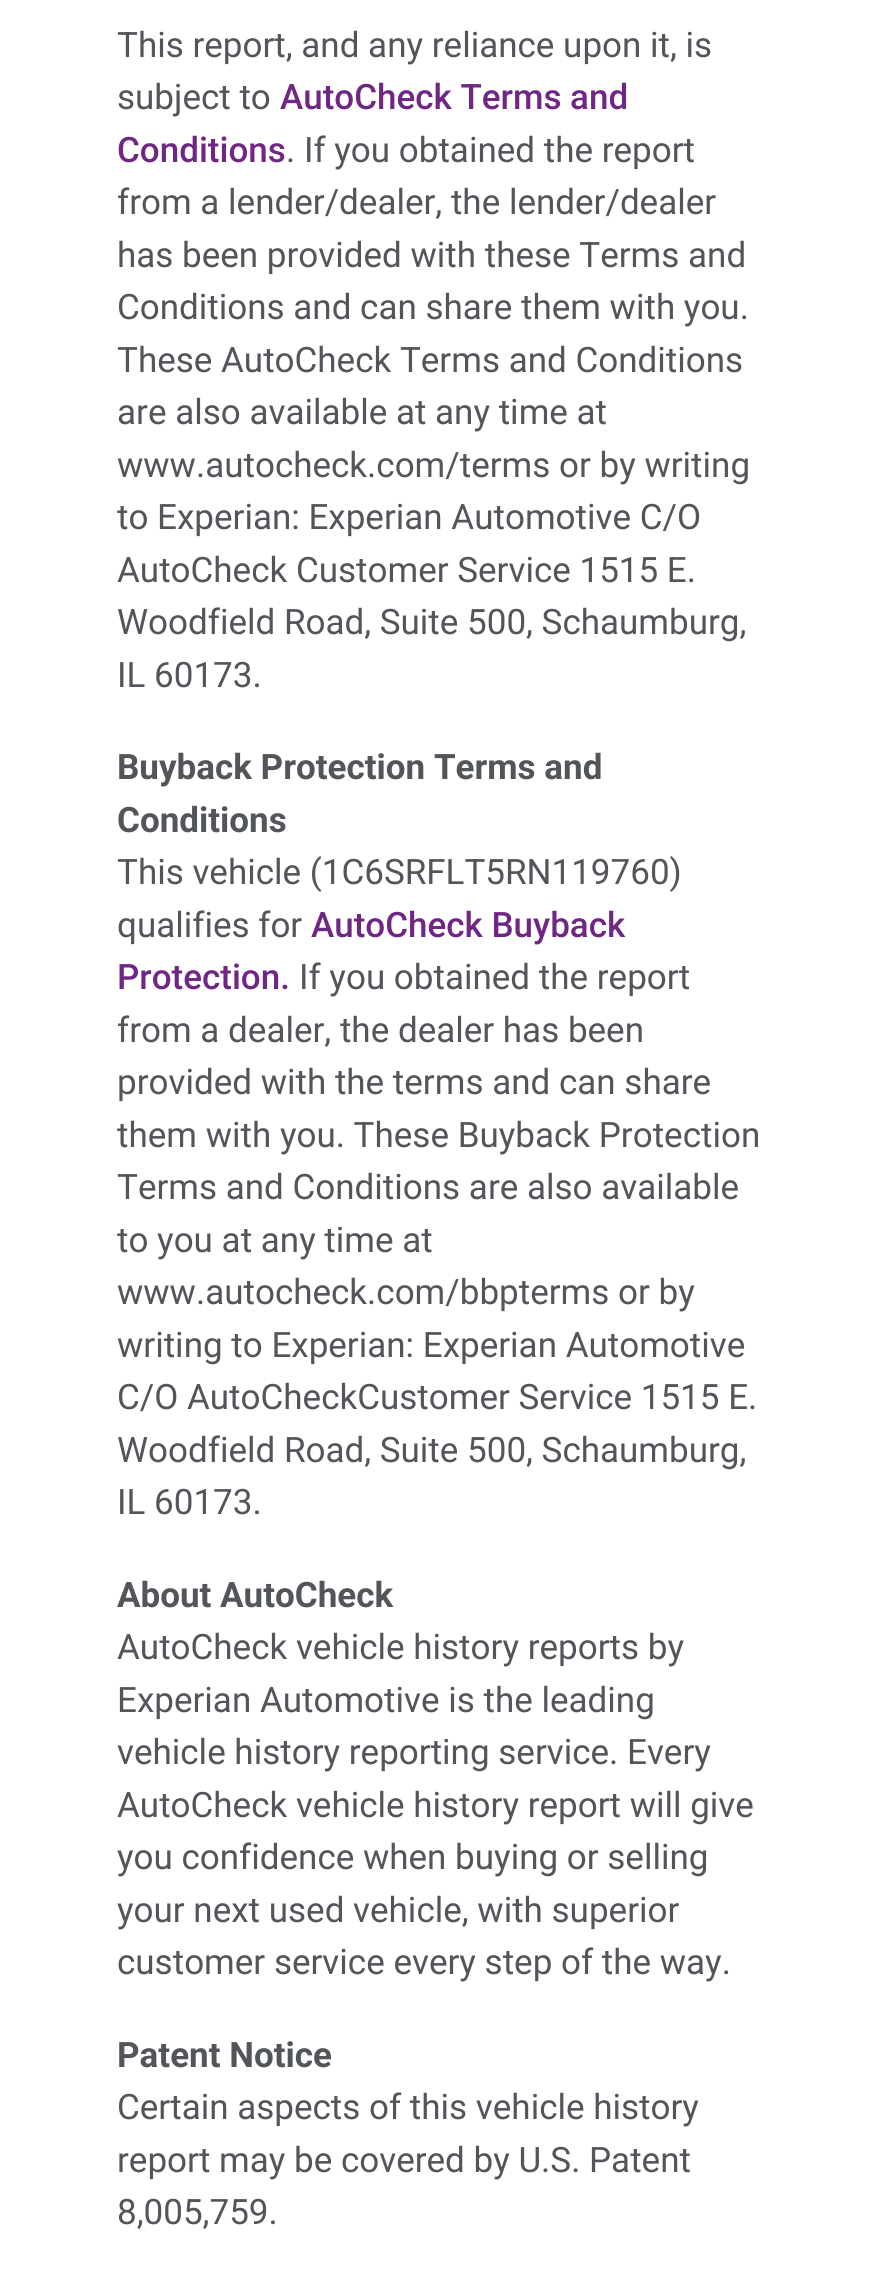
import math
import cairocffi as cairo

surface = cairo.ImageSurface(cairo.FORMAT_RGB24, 880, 2287)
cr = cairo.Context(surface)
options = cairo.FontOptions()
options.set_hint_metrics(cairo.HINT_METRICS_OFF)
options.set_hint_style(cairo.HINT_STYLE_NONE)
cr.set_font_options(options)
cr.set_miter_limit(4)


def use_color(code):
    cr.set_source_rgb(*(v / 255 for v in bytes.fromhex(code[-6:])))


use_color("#ffffff")
cr.paint()
cr.select_font_face("Roboto")
cr.set_font_size(35)
use_color("#52555a")
cr.move_to(117, 57)
cr.show_text("This report, and any reliance upon it, is")
cr.move_to(117, 109)
cr.show_text("subject to")
cr.select_font_face("Roboto Medium")
use_color("#702784")
cr.move_to(280, 109)
cr.show_text("AutoCheck Terms and")
cr.move_to(117, 162)
cr.show_text("Conditions")
cr.select_font_face("Roboto")
use_color("#52555a")
cr.move_to(286, 162)
cr.show_text(". If you obtained the report")
cr.move_to(117, 214)
cr.show_text("from a lender/dealer, the lender/dealer")
cr.move_to(117, 267)
cr.show_text("has been provided with these Terms and")
cr.move_to(117, 319)
cr.show_text("Conditions and can share them with you.")
cr.move_to(117, 372)
cr.show_text("These AutoCheck Terms and Conditions")
cr.move_to(117, 424)
cr.show_text("are also available at any time at")
cr.move_to(117, 477)
cr.show_text("www.autocheck.com/terms or by writing")
cr.move_to(117, 529)
cr.show_text("to Experian: Experian Automotive C/O")
cr.move_to(117, 582)
cr.show_text("AutoCheck Customer Service 1515 E.")
cr.move_to(117, 634)
cr.show_text("Woodfield Road, Suite 500, Schaumburg,")
cr.move_to(117, 687)
cr.show_text("IL 60173.")
cr.select_font_face("Roboto", cairo.FONT_SLANT_NORMAL, cairo.FONT_WEIGHT_BOLD)
cr.move_to(117, 779)
cr.show_text("Buyback Protection Terms and")
cr.move_to(117, 832)
cr.show_text("Conditions")
cr.select_font_face("Roboto")
cr.move_to(117, 884)
cr.show_text("This vehicle (1C6SRFLT5RN119760)")
cr.move_to(117, 937)
cr.show_text("qualifies for")
cr.select_font_face("Roboto Medium")
use_color("#702784")
cr.move_to(311, 937)
cr.show_text("AutoCheck Buyback")
cr.move_to(117, 989)
cr.show_text("Protection.")
cr.select_font_face("Roboto")
use_color("#52555a")
cr.move_to(299, 989)
cr.show_text("If you obtained the report")
cr.move_to(117, 1042)
cr.show_text("from a dealer, the dealer has been")
cr.move_to(117, 1094)
cr.show_text("provided with the terms and can share")
cr.move_to(117, 1147)
cr.show_text("them with you. These Buyback Protection")
cr.move_to(117, 1199)
cr.show_text("Terms and Conditions are also available")
cr.move_to(117, 1252)
cr.show_text("to you at any time at")
cr.move_to(117, 1304)
cr.show_text("www.autocheck.com/bbpterms or by")
cr.move_to(117, 1357)
cr.show_text("writing to Experian: Experian Automotive")
cr.move_to(117, 1409)
cr.show_text("C/O AutoCheckCustomer Service 1515 E.")
cr.move_to(117, 1462)
cr.show_text("Woodfield Road, Suite 500, Schaumburg,")
cr.move_to(117, 1514)
cr.show_text("IL 60173.")
cr.select_font_face("Roboto", cairo.FONT_SLANT_NORMAL, cairo.FONT_WEIGHT_BOLD)
cr.move_to(117, 1607)
cr.show_text("About AutoCheck")
cr.select_font_face("Roboto")
cr.move_to(117, 1659)
cr.show_text("AutoCheck vehicle history reports by")
cr.move_to(117, 1712)
cr.show_text("Experian Automotive is the leading")
cr.move_to(117, 1764)
cr.show_text("vehicle history reporting service. Every")
cr.move_to(117, 1817)
cr.show_text("AutoCheck vehicle history report will give")
cr.move_to(117, 1869)
cr.show_text("you confidence when buying or selling")
cr.move_to(117, 1922)
cr.show_text("your next used vehicle, with superior")
cr.move_to(117, 1974)
cr.show_text("customer service every step of the way.")
cr.select_font_face("Roboto", cairo.FONT_SLANT_NORMAL, cairo.FONT_WEIGHT_BOLD)
cr.move_to(117, 2067)
cr.show_text("Patent Notice")
cr.select_font_face("Roboto")
cr.move_to(117, 2119)
cr.show_text("Certain aspects of this vehicle history")
cr.move_to(117, 2172)
cr.show_text("report may be covered by U.S. Patent")
cr.move_to(117, 2224)
cr.show_text("8,005,759.")
surface.write_to_png("result.png")
